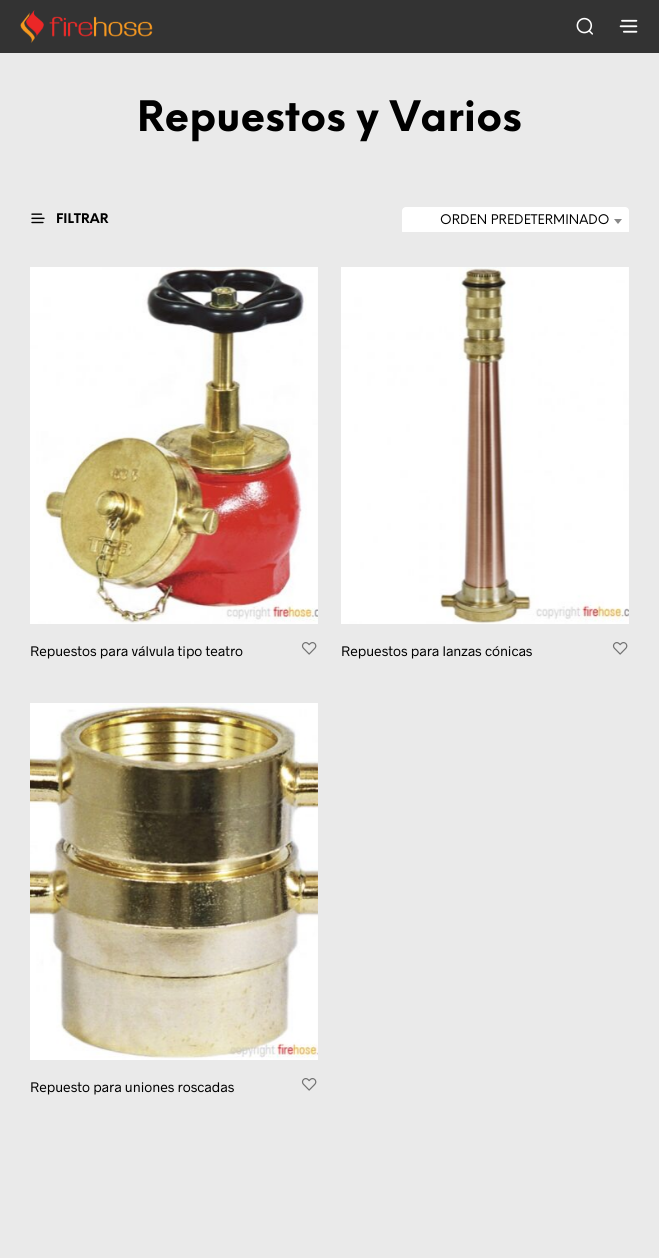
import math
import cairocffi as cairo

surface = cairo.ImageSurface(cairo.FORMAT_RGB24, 659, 1258)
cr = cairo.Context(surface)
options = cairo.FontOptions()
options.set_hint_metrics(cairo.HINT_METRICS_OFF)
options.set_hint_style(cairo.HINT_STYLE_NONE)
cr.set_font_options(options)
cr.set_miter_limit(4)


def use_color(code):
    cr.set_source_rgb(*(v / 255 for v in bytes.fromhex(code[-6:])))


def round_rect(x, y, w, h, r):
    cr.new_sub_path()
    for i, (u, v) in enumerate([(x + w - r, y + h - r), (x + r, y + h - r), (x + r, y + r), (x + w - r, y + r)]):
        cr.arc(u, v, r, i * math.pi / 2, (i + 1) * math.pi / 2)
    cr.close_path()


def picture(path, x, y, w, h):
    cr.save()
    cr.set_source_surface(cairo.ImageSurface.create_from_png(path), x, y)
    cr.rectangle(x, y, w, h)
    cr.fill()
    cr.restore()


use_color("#eaeaea")
cr.paint()
use_color("#333333")
cr.rectangle(0, 0, 659, 53)
cr.fill()
picture("img1.png", 20, 10, 133, 33)
picture("img2.png", 576, 17, 17, 18)
picture("img3.png", 619, 19, 19, 14)
cr.select_font_face("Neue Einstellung", cairo.FONT_SLANT_NORMAL, cairo.FONT_WEIGHT_BOLD)
cr.set_font_size(41)
use_color("#000000")
cr.move_to(137, 131)
cr.show_text("Repuestos y Varios")
picture("img4.png", 31, 213, 14, 11)
cr.set_font_size(13)
cr.move_to(56, 223)
cr.show_text("FILTRAR")
cr.save()
cr.rectangle(30, 205, 599, 27)
cr.clip()
use_color("#ffffff")
round_rect(402, 207, 227, 28, 4)
cr.fill()
cr.restore()
cr.select_font_face("Neue Einstellung")
cr.move_to(440, 224)
cr.show_text("ORDEN PREDETERMINADO")
use_color("#888888")
cr.new_path()
cr.move_to(614, 219)
cr.line_to(622, 219)
cr.line_to(618, 224)
cr.close_path()
cr.fill()
picture("img5.png", 30, 267, 288, 357)
picture("img6.png", 301, 642, 16, 13)
cr.select_font_face("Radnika")
cr.set_font_size(14)
use_color("#000000")
cr.move_to(30, 656)
cr.show_text("Repuestos para válvula tipo teatro")
picture("img7.png", 341, 267, 288, 357)
picture("img6.png", 612, 642, 16, 13)
cr.move_to(341, 656)
cr.show_text("Repuestos para lanzas cónicas")
picture("img8.png", 30, 703, 288, 357)
picture("img6.png", 301, 1078, 16, 13)
cr.move_to(30, 1092)
cr.show_text("Repuesto para uniones roscadas")
surface.write_to_png("result.png")
